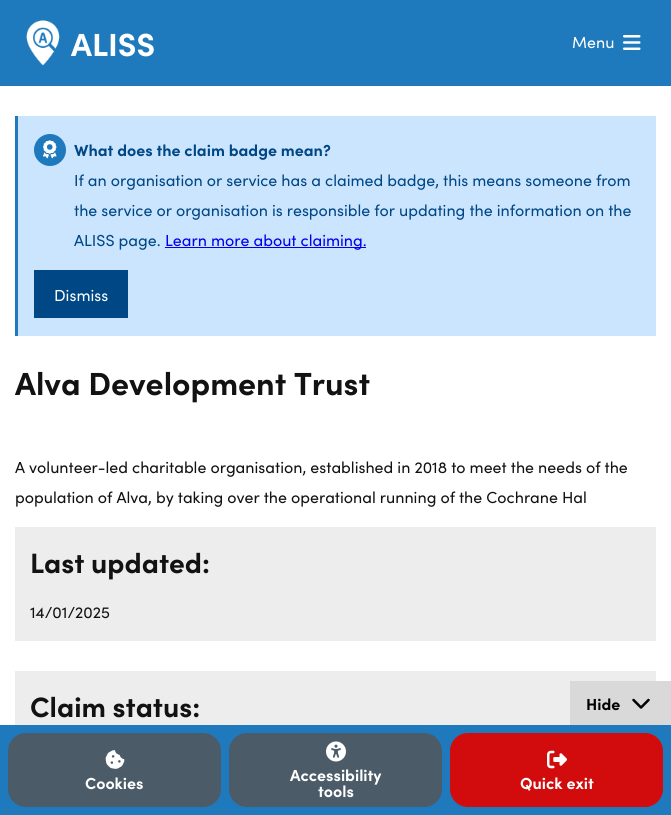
import math
import cairocffi as cairo

surface = cairo.ImageSurface(cairo.FORMAT_RGB24, 671, 815)
cr = cairo.Context(surface)
options = cairo.FontOptions()
options.set_hint_metrics(cairo.HINT_METRICS_OFF)
options.set_hint_style(cairo.HINT_STYLE_NONE)
cr.set_font_options(options)
cr.set_miter_limit(4)


def use_color(code):
    cr.set_source_rgb(*(v / 255 for v in bytes.fromhex(code[-6:])))


def round_rect(x, y, w, h, r):
    cr.new_sub_path()
    for i, (u, v) in enumerate([(x + w - r, y + h - r), (x + r, y + h - r), (x + r, y + r), (x + w - r, y + r)]):
        cr.arc(u, v, r, i * math.pi / 2, (i + 1) * math.pi / 2)
    cr.close_path()


def picture(path, x, y, w, h):
    cr.save()
    cr.set_source_surface(cairo.ImageSurface.create_from_png(path), x, y)
    cr.rectangle(x, y, w, h)
    cr.fill()
    cr.restore()


use_color("#ffffff")
cr.paint()
use_color("#1e7abd")
cr.rectangle(0, 0, 671, 86)
cr.fill()
picture("img1.png", 26, 20, 34, 46)
cr.select_font_face("Sofia", cairo.FONT_SLANT_NORMAL, cairo.FONT_WEIGHT_BOLD)
cr.set_font_size(32)
use_color("#ffffff")
cr.move_to(71, 56)
cr.show_text("ALISS")
cr.select_font_face("Sofia")
cr.set_font_size(16)
cr.move_to(572, 48)
cr.show_text("Menu")
picture("img2.png", 623, 35, 18, 15)
use_color("#cce5ff")
cr.rectangle(18, 116, 638, 220)
cr.fill()
use_color("#1e7abd")
cr.rectangle(15, 116, 3, 220)
cr.fill()
cr.arc(50, 150, 16, 0, 2 * math.pi)
cr.fill()
picture("img3.png", 43, 140, 14, 19)
cr.select_font_face("Sofia", cairo.FONT_SLANT_NORMAL, cairo.FONT_WEIGHT_BOLD)
use_color("#004785")
cr.move_to(74, 156)
cr.show_text("What does the claim badge mean?")
cr.select_font_face("Sofia")
cr.move_to(74, 186)
cr.show_text("If an organisation or service has a claimed badge, this means someone from")
cr.move_to(74, 216)
cr.show_text("the service or organisation is responsible for updating the information on the")
cr.move_to(74, 246)
cr.show_text("ALISS page.")
use_color("#0000ee")
cr.rectangle(165, 247, 201, 1)
cr.fill()
cr.move_to(165, 246)
cr.show_text("Learn more about claiming.")
use_color("#004785")
cr.rectangle(34, 270, 94, 48)
cr.fill()
use_color("#ffffff")
cr.move_to(54, 301)
cr.show_text("Dismiss")
cr.select_font_face("Sofia", cairo.FONT_SLANT_NORMAL, cairo.FONT_WEIGHT_BOLD)
cr.set_font_size(32)
use_color("#121212")
cr.move_to(15, 395)
cr.show_text("Alva Development Trust")
cr.select_font_face("Sofia")
cr.set_font_size(16)
cr.move_to(15, 473)
cr.show_text("A volunteer-led charitable organisation, established in 2018 to meet the needs of the")
cr.move_to(15, 503)
cr.show_text("population of Alva, by taking over the operational running of the Cochrane Hal")
use_color("#ededed")
cr.rectangle(15, 527, 641, 114)
cr.fill()
cr.select_font_face("Sofia", cairo.FONT_SLANT_NORMAL, cairo.FONT_WEIGHT_BOLD)
cr.set_font_size(28)
use_color("#121212")
cr.move_to(30, 573)
cr.show_text("Last updated:")
cr.select_font_face("Sofia")
cr.set_font_size(16)
cr.move_to(30, 618)
cr.show_text("14/01/2025")
use_color("#ededed")
cr.rectangle(15, 671, 641, 54)
cr.fill()
cr.select_font_face("Sofia", cairo.FONT_SLANT_NORMAL, cairo.FONT_WEIGHT_BOLD)
cr.set_font_size(28)
use_color("#121212")
cr.move_to(30, 717)
cr.show_text("Claim status:")
use_color("#d9d9d9")
cr.rectangle(570, 681, 101, 44)
cr.fill()
cr.set_font_size(16)
use_color("#000000")
cr.move_to(586, 710)
cr.show_text("Hide")
picture("img4.png", 632, 698, 18, 11)
use_color("#1e7abd")
cr.rectangle(0, 725, 671, 90)
cr.fill()
use_color("#4b5b68")
round_rect(8, 733, 213, 74, 18)
cr.fill()
picture("img5.png", 105, 750, 20, 19)
use_color("#ffffff")
cr.move_to(85, 789)
cr.show_text("Cookies")
use_color("#4b5b68")
round_rect(229, 733, 213, 74, 18)
cr.fill()
picture("img6.png", 326, 741, 20, 21)
use_color("#ffffff")
cr.move_to(290, 781)
cr.show_text("Accessibility")
cr.move_to(318, 797)
cr.show_text("tools")
use_color("#d20c0c")
round_rect(450, 733, 213, 74, 18)
cr.fill()
picture("img7.png", 547, 750, 20, 19)
use_color("#ffffff")
cr.move_to(520, 789)
cr.show_text("Quick exit")
surface.write_to_png("result.png")
